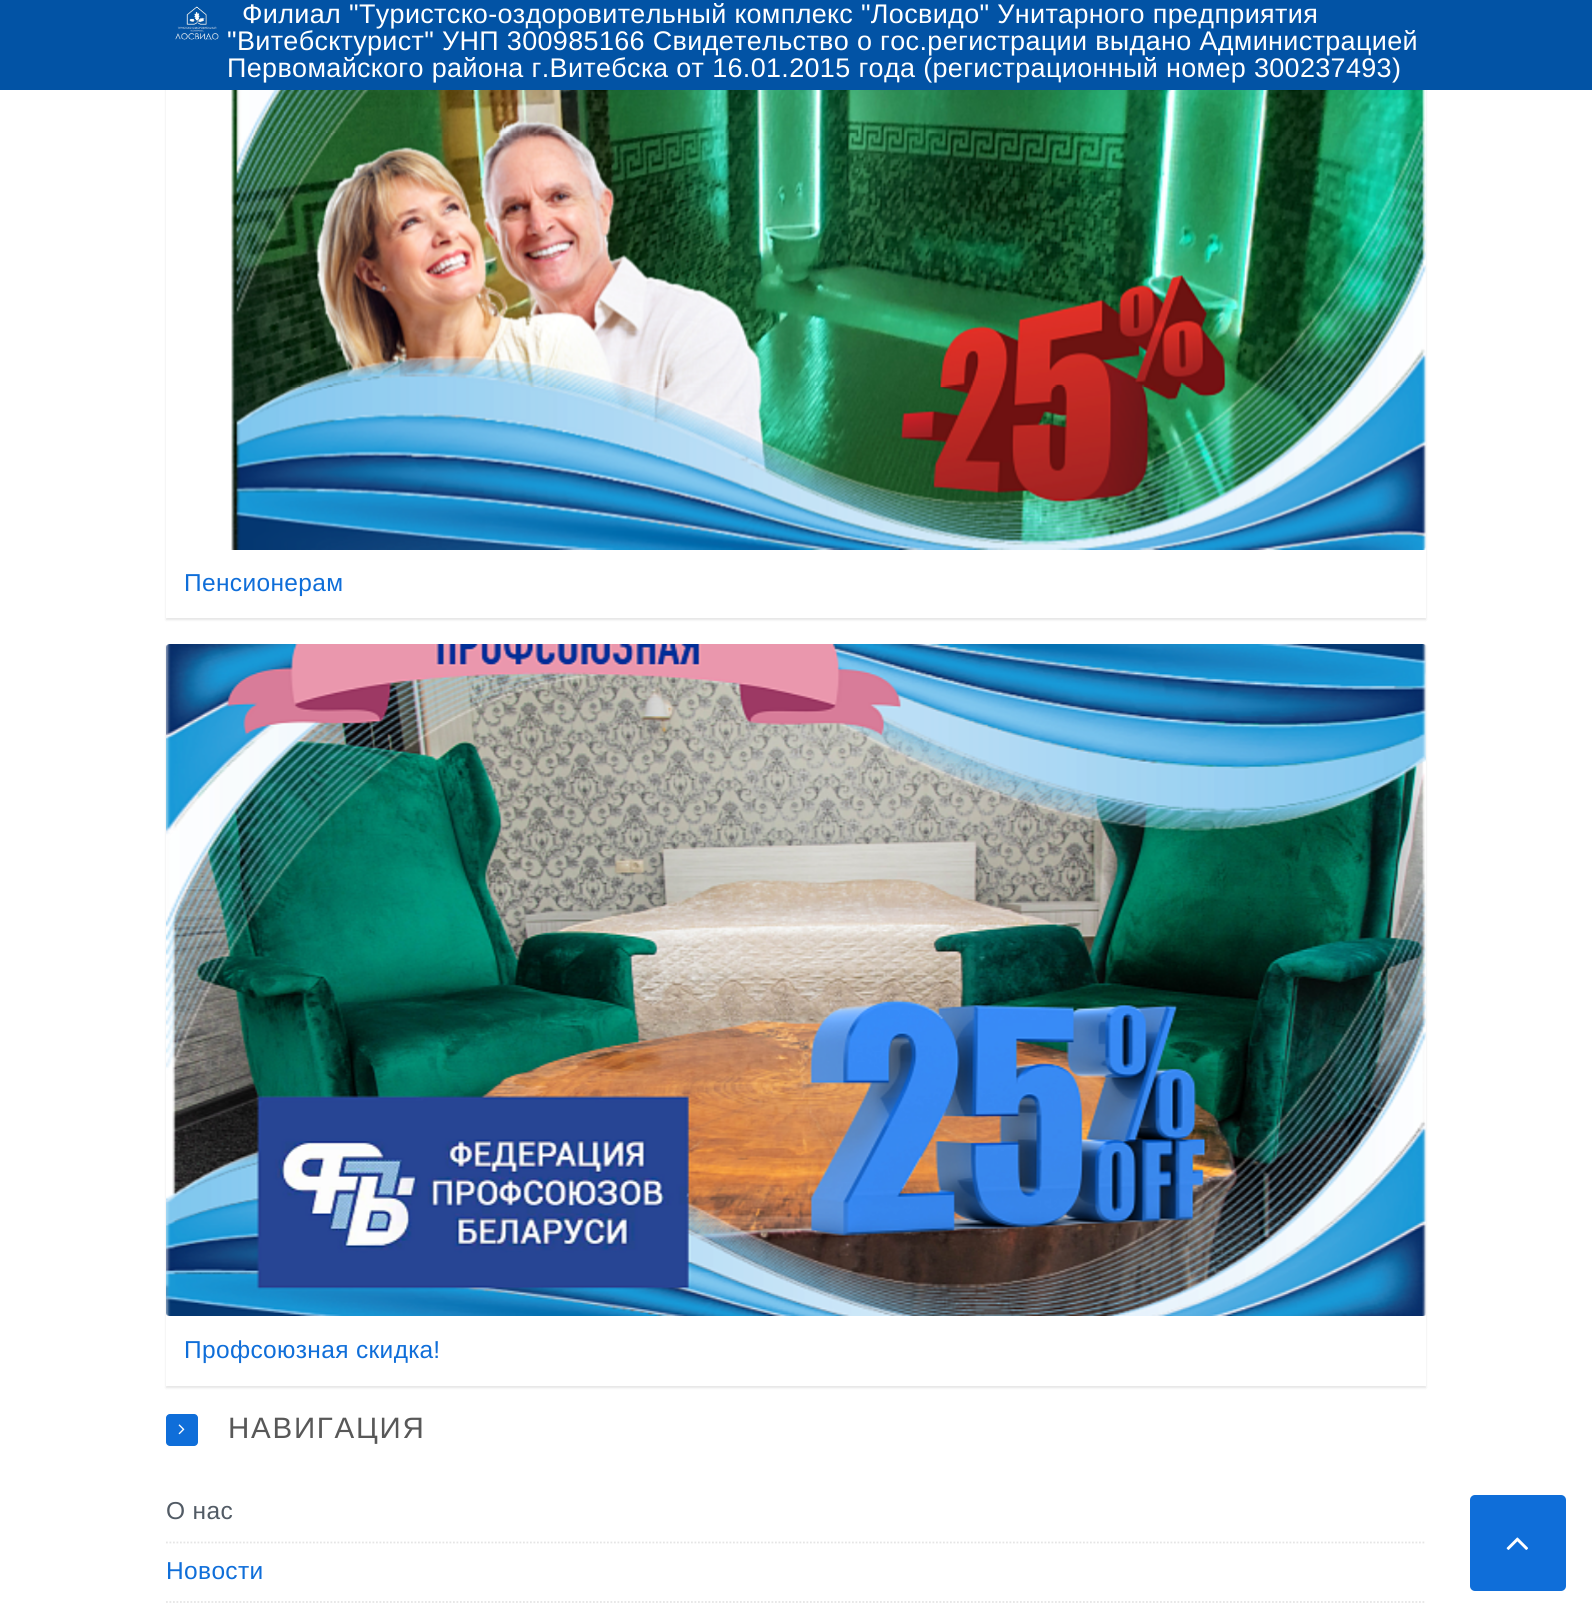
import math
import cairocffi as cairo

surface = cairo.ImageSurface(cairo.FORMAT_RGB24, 1592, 1617)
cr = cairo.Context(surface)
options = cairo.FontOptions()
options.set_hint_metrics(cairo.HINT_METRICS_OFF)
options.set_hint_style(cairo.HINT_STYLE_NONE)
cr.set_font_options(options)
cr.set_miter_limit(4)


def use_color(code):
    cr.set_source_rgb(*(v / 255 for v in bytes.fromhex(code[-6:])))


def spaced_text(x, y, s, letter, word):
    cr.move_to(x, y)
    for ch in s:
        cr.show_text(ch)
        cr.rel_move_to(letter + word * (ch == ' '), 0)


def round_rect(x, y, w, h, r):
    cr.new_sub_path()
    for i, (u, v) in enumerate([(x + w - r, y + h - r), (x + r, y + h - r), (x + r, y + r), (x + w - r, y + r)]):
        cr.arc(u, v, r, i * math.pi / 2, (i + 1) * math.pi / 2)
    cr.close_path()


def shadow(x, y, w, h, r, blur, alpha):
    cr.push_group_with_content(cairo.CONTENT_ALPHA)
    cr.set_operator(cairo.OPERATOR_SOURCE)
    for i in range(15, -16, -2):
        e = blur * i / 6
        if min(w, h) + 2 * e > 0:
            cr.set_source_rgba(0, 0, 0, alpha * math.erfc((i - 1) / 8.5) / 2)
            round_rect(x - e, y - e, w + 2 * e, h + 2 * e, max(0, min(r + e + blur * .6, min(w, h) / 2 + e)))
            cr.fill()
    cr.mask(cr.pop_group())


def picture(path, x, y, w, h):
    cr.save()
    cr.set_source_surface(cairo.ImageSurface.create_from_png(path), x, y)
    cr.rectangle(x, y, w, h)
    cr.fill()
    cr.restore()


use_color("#ffffff")
cr.paint()
cr.save()
cr.set_fill_rule(cairo.FILL_RULE_EVEN_ODD)
cr.new_path()
cr.move_to(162, 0)
cr.line_to(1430, 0)
cr.line_to(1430, 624)
cr.line_to(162, 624)
cr.close_path()
cr.move_to(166, -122)
cr.line_to(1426, -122)
cr.line_to(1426, 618)
cr.line_to(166, 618)
cr.close_path()
cr.clip()
use_color("#000000")
shadow(166, -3, 1260, 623, 0, 1, 0.1)
cr.restore()
use_color("#0253a5")
cr.rectangle(0, 0, 1592, 90)
cr.fill()
picture("img1.png", 175, 6, 44, 35)
cr.select_font_face("Liberation Sans")
cr.set_font_size(26.95)
use_color("#ffffff")
spaced_text(242, 23, "Филиал \"Туристско-оздоровительный комплекс \"Лосвидо\" Унитарного предприятия", 0.35, 0)
spaced_text(227, 50, "\"Витебсктурист\" УНП 300985166 Свидетельство о гос.регистрации выдано Администрацией", 0.35, 0)
spaced_text(227, 77, "Первомайского района г.Витебска от 16.01.2015 года (регистрационный номер 300237493)", 0.35, 0)
picture("img2.png", 231, 90, 1195, 460)
cr.rectangle(166, 550, 1260, 68)
cr.fill()
cr.set_font_size(24.5)
use_color("#0f6ed9")
spaced_text(184, 591, "Пенсионерам", 0.35, 0)
cr.save()
cr.set_fill_rule(cairo.FILL_RULE_EVEN_ODD)
cr.new_path()
cr.move_to(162, 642)
cr.line_to(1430, 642)
cr.line_to(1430, 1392)
cr.line_to(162, 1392)
cr.close_path()
cr.move_to(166, 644)
cr.line_to(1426, 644)
cr.line_to(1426, 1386)
cr.line_to(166, 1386)
cr.close_path()
cr.clip()
use_color("#000000")
shadow(166, 646, 1260, 742, 0, 1, 0.1)
cr.restore()
picture("img3.png", 166, 644, 1260, 672)
use_color("#ffffff")
cr.rectangle(166, 1316, 1, 70)
cr.fill()
use_color("#0f6ed9")
spaced_text(184, 1358, "Профсоюзная скидка!", 0.35, 0)
round_rect(166, 1414, 32, 32, 4)
cr.fill()
picture("img4.png", 178, 1424, 7, 11)
cr.set_font_size(29.5)
use_color("#585858")
spaced_text(228, 1438, "НАВИГАЦИЯ", 1.75, 0)
cr.new_path()
cr.move_to(166, 1542.5)
cr.line_to(1426, 1542.5)
use_color("#e5e5e5")
cr.set_line_width(1.8)
cr.set_dash([1.75, 1.75])
cr.stroke()
cr.set_font_size(24.5)
use_color("#525b65")
spaced_text(166, 1519, "О нас", 0.35, 0)
cr.new_path()
cr.move_to(166, 1602)
cr.line_to(1426, 1602)
use_color("#e5e5e5")
cr.stroke()
use_color("#0f6ed9")
spaced_text(166, 1579, "Новости", 0.35, 0)
round_rect(1470, 1495, 96, 96, 5)
cr.fill()
picture("img5.png", 1506, 1537, 22, 13)
surface.write_to_png("result.png")
